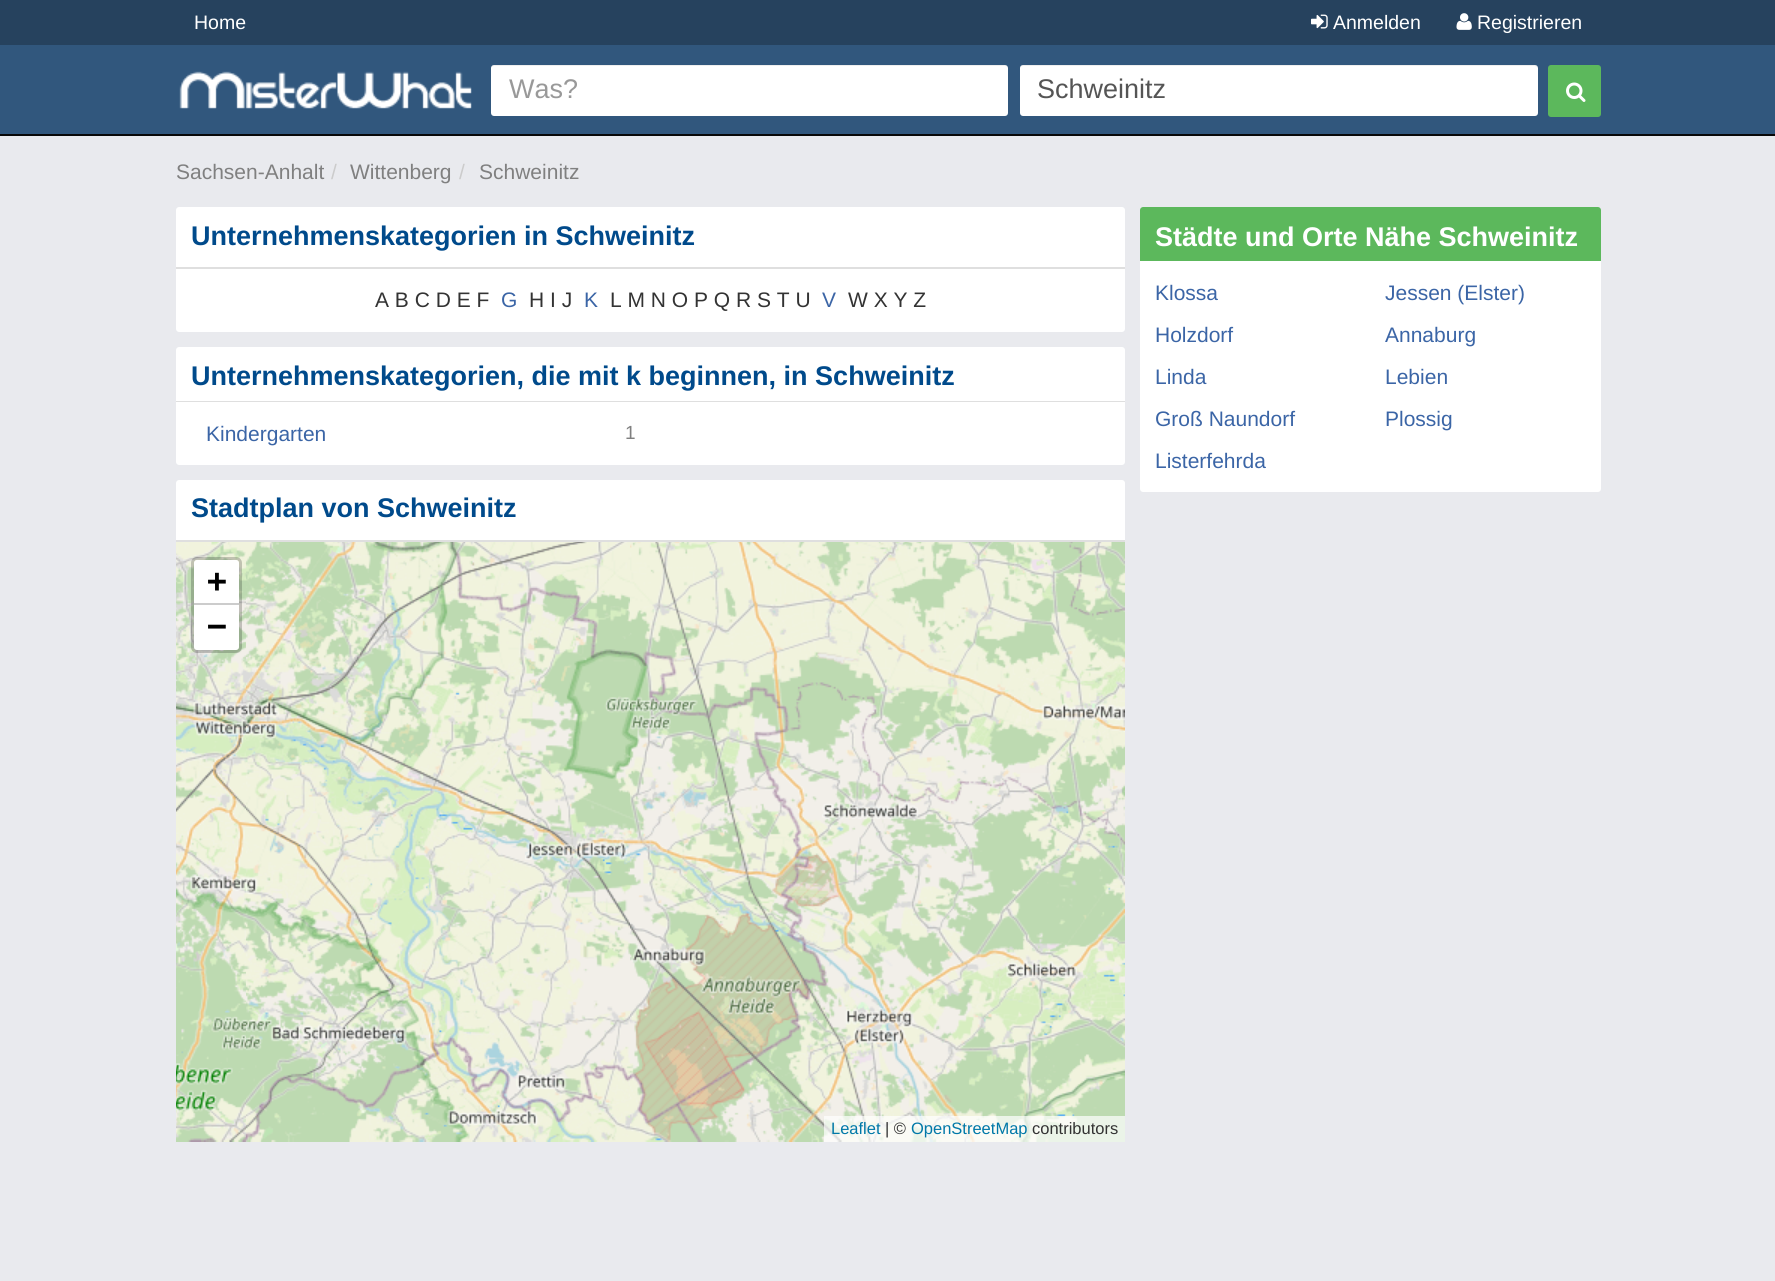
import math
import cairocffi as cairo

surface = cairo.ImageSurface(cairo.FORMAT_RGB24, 1775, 1281)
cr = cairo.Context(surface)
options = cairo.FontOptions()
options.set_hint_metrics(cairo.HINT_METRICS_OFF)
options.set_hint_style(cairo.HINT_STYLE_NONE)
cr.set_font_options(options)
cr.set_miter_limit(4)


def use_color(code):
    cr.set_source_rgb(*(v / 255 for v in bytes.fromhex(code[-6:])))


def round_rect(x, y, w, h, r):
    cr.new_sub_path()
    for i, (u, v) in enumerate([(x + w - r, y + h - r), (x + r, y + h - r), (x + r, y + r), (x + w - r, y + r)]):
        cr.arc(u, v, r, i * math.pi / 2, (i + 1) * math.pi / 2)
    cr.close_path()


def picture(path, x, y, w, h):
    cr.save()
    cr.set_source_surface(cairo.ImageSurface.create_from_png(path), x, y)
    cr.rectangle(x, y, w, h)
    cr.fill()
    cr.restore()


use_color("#e9eaee")
cr.paint()
use_color("#31577d")
cr.rectangle(0, 45, 1775, 89)
cr.fill()
use_color("#080808")
cr.rectangle(0, 134, 1775, 2)
cr.fill()
use_color("#26425e")
cr.rectangle(0, 0, 1775, 45)
cr.fill()
cr.select_font_face("Liberation Sans")
cr.set_font_size(19.5)
use_color("#ffffff")
cr.move_to(194, 29)
cr.show_text("Home")
picture("img1.png", 1311, 14, 17, 15)
cr.move_to(1333, 29)
cr.show_text("Anmelden")
picture("img2.png", 1456, 13, 16, 17)
cr.move_to(1477, 29)
cr.show_text("Registrieren")
picture("img3.png", 179, 71, 293, 38)
round_rect(491, 65, 517, 51, 3)
cr.fill()
cr.set_source_rgba(0, 0, 0, 0.07)
cr.new_path()
cr.move_to(494, 66)
cr.line_to(1005, 66)
cr.curve_to(1007, 66, 1008, 67, 1008, 69)
cr.line_to(1008, 68)
cr.curve_to(1008, 66, 1007, 65, 1005, 65)
cr.line_to(494, 65)
cr.curve_to(493, 65, 492, 66, 491, 67)
cr.close_path()
cr.fill()
cr.set_font_size(27)
use_color("#999999")
cr.move_to(509, 98)
cr.show_text("Was?")
use_color("#ffffff")
round_rect(1020, 65, 518, 51, 3)
cr.fill()
cr.set_source_rgba(0, 0, 0, 0.07)
cr.new_path()
cr.move_to(1023, 66)
cr.line_to(1534, 66)
cr.curve_to(1536, 66, 1538, 67, 1538, 69)
cr.line_to(1538, 67)
cr.line_to(1536, 65)
cr.line_to(1023, 65)
cr.curve_to(1021, 65, 1020, 67, 1020, 69)
cr.curve_to(1020, 67, 1021, 66, 1023, 66)
cr.close_path()
cr.fill()
use_color("#555555")
cr.move_to(1037, 98)
cr.show_text("Schweinitz")
use_color("#5cb85c")
round_rect(1548, 65, 53, 52, 3)
cr.fill()
picture("img4.png", 1566, 82, 20, 20)
cr.set_font_size(21)
use_color("#808080")
cr.move_to(176, 179)
cr.show_text("Sachsen-Anhalt")
use_color("#cccccc")
cr.move_to(331, 179)
cr.show_text("/")
use_color("#808080")
cr.move_to(350, 179)
cr.show_text("Wittenberg")
use_color("#cccccc")
cr.move_to(459, 179)
cr.show_text("/")
use_color("#808080")
cr.move_to(479, 179)
cr.show_text("Schweinitz")
use_color("#ffffff")
cr.new_path()
cr.move_to(179, 207)
cr.line_to(1122, 207)
cr.curve_to(1123.5, 207, 1125, 208.5, 1125, 210)
cr.line_to(1125, 269)
cr.line_to(176, 269)
cr.line_to(176, 210)
cr.curve_to(176, 208.5, 177.5, 207, 179, 207)
cr.close_path()
cr.fill()
use_color("#dfdfdf")
cr.rectangle(176, 267, 949, 2)
cr.fill()
cr.select_font_face("Liberation Sans", cairo.FONT_SLANT_NORMAL, cairo.FONT_WEIGHT_BOLD)
cr.set_font_size(27)
use_color("#004a8b")
cr.move_to(191, 245)
cr.show_text("Unternehmenskategorien in Schweinitz")
use_color("#ffffff")
cr.new_path()
cr.move_to(176, 269)
cr.line_to(1125, 269)
cr.line_to(1125, 329)
cr.curve_to(1125, 330.5, 1123.5, 332, 1122, 332)
cr.line_to(179, 332)
cr.curve_to(177.5, 332, 176, 330.5, 176, 329)
cr.close_path()
cr.fill()
cr.select_font_face("Liberation Sans")
cr.set_font_size(21)
use_color("#333333")
cr.move_to(375, 307)
cr.show_text("A B C D E F")
use_color("#3b65a6")
cr.move_to(501, 307)
cr.show_text("G")
use_color("#333333")
cr.move_to(529, 307)
cr.show_text("H I J")
use_color("#3b65a6")
cr.move_to(584, 307)
cr.show_text("K")
use_color("#333333")
cr.move_to(610, 307)
cr.show_text("L M N O P Q R S T U")
use_color("#3b65a6")
cr.move_to(822, 307)
cr.show_text("V")
use_color("#333333")
cr.move_to(848, 307)
cr.show_text("W X Y Z")
use_color("#ffffff")
cr.new_path()
cr.move_to(179, 347)
cr.line_to(1122, 347)
cr.curve_to(1123.5, 347, 1125, 348.5, 1125, 350)
cr.line_to(1125, 402)
cr.line_to(176, 402)
cr.line_to(176, 350)
cr.curve_to(176, 348.5, 177.5, 347, 179, 347)
cr.close_path()
cr.fill()
use_color("#dfdfdf")
cr.rectangle(176, 401, 949, 1)
cr.fill()
cr.select_font_face("Liberation Sans", cairo.FONT_SLANT_NORMAL, cairo.FONT_WEIGHT_BOLD)
cr.set_font_size(27)
use_color("#004a8b")
cr.move_to(191, 385)
cr.show_text("Unternehmenskategorien, die mit k beginnen, in Schweinitz")
use_color("#ffffff")
cr.new_path()
cr.move_to(176, 402)
cr.line_to(1125, 402)
cr.line_to(1125, 462)
cr.curve_to(1125, 463.5, 1123.5, 465, 1122, 465)
cr.line_to(179, 465)
cr.curve_to(177.5, 465, 176, 463.5, 176, 462)
cr.close_path()
cr.fill()
cr.select_font_face("Liberation Sans")
cr.set_font_size(21)
use_color("#3b65a6")
cr.move_to(206, 441)
cr.show_text("Kindergarten")
cr.set_font_size(19)
use_color("#808080")
cr.move_to(625, 439)
cr.show_text("1")
use_color("#ffffff")
cr.new_path()
cr.move_to(179, 480)
cr.line_to(1122, 480)
cr.curve_to(1123.5, 480, 1125, 481.5, 1125, 483)
cr.line_to(1125, 542)
cr.line_to(176, 542)
cr.line_to(176, 483)
cr.curve_to(176, 481.5, 177.5, 480, 179, 480)
cr.close_path()
cr.fill()
use_color("#dfdfdf")
cr.rectangle(176, 540, 949, 2)
cr.fill()
cr.select_font_face("Liberation Sans", cairo.FONT_SLANT_NORMAL, cairo.FONT_WEIGHT_BOLD)
cr.set_font_size(27)
use_color("#004a8b")
cr.move_to(191, 517)
cr.show_text("Stadtplan von Schweinitz")
picture("img5.png", 176, 542, 70, 231)
picture("img6.png", 246, 542, 384, 231)
picture("img7.png", 630, 542, 384, 231)
picture("img8.png", 1014, 542, 111, 231)
picture("img9.png", 176, 772, 70, 370)
picture("img10.png", 246, 772, 384, 370)
picture("img11.png", 630, 772, 384, 370)
picture("img12.png", 1014, 772, 111, 370)
round_rect(192.5, 558.5, 48, 93, 4.5)
cr.set_source_rgba(0, 0, 0, 0.2)
cr.set_line_width(3)
cr.stroke()
use_color("#ffffff")
cr.new_path()
cr.move_to(197, 560)
cr.line_to(236, 560)
cr.curve_to(237.5, 560, 239, 561.5, 239, 563)
cr.line_to(239, 605)
cr.line_to(194, 605)
cr.line_to(194, 563)
cr.curve_to(194, 561.5, 195.5, 560, 197, 560)
cr.close_path()
cr.fill()
use_color("#cccccc")
cr.rectangle(194, 603, 45, 2)
cr.fill()
cr.select_font_face("DejaVu Sans Mono", cairo.FONT_SLANT_NORMAL, cairo.FONT_WEIGHT_BOLD)
cr.set_font_size(33)
use_color("#000000")
cr.move_to(207, 592)
cr.show_text("+")
use_color("#ffffff")
cr.new_path()
cr.move_to(194, 605)
cr.line_to(239, 605)
cr.line_to(239, 647)
cr.curve_to(239, 648.5, 237.5, 650, 236, 650)
cr.line_to(197, 650)
cr.curve_to(195.5, 650, 194, 648.5, 194, 647)
cr.close_path()
cr.fill()
use_color("#000000")
cr.move_to(207, 637)
cr.show_text("−")
cr.set_source_rgba(1, 1, 1, 0.7)
cr.rectangle(824, 1116, 301, 26)
cr.fill()
cr.select_font_face("Liberation Sans")
cr.set_font_size(16.5)
use_color("#0078a8")
cr.move_to(831, 1134)
cr.show_text("Leaflet")
use_color("#333333")
cr.move_to(885, 1134)
cr.show_text("| ©")
use_color("#0078a8")
cr.move_to(911, 1134)
cr.show_text("OpenStreetMap")
use_color("#333333")
cr.move_to(1032, 1134)
cr.show_text("contributors")
use_color("#5cb85c")
cr.new_path()
cr.move_to(1143, 207)
cr.line_to(1598, 207)
cr.curve_to(1599.5, 207, 1601, 208.5, 1601, 210)
cr.line_to(1601, 261)
cr.line_to(1140, 261)
cr.line_to(1140, 210)
cr.curve_to(1140, 208.5, 1141.5, 207, 1143, 207)
cr.close_path()
cr.fill()
cr.select_font_face("Liberation Sans", cairo.FONT_SLANT_NORMAL, cairo.FONT_WEIGHT_BOLD)
cr.set_font_size(27)
use_color("#ffffff")
cr.move_to(1155, 246)
cr.show_text("Städte und Orte Nähe Schweinitz")
cr.new_path()
cr.move_to(1140, 261)
cr.line_to(1601, 261)
cr.line_to(1601, 489)
cr.curve_to(1601, 490.5, 1599.5, 492, 1598, 492)
cr.line_to(1143, 492)
cr.curve_to(1141.5, 492, 1140, 490.5, 1140, 489)
cr.close_path()
cr.fill()
cr.select_font_face("Liberation Sans")
cr.set_font_size(21)
use_color("#3b65a6")
cr.move_to(1155, 300)
cr.show_text("Klossa")
cr.move_to(1385, 300)
cr.show_text("Jessen (Elster)")
cr.move_to(1155, 342)
cr.show_text("Holzdorf")
cr.move_to(1385, 342)
cr.show_text("Annaburg")
cr.move_to(1155, 384)
cr.show_text("Linda")
cr.move_to(1385, 384)
cr.show_text("Lebien")
cr.move_to(1155, 426)
cr.show_text("Groß Naundorf")
cr.move_to(1385, 426)
cr.show_text("Plossig")
cr.move_to(1155, 468)
cr.show_text("Listerfehrda")
surface.write_to_png("result.png")
